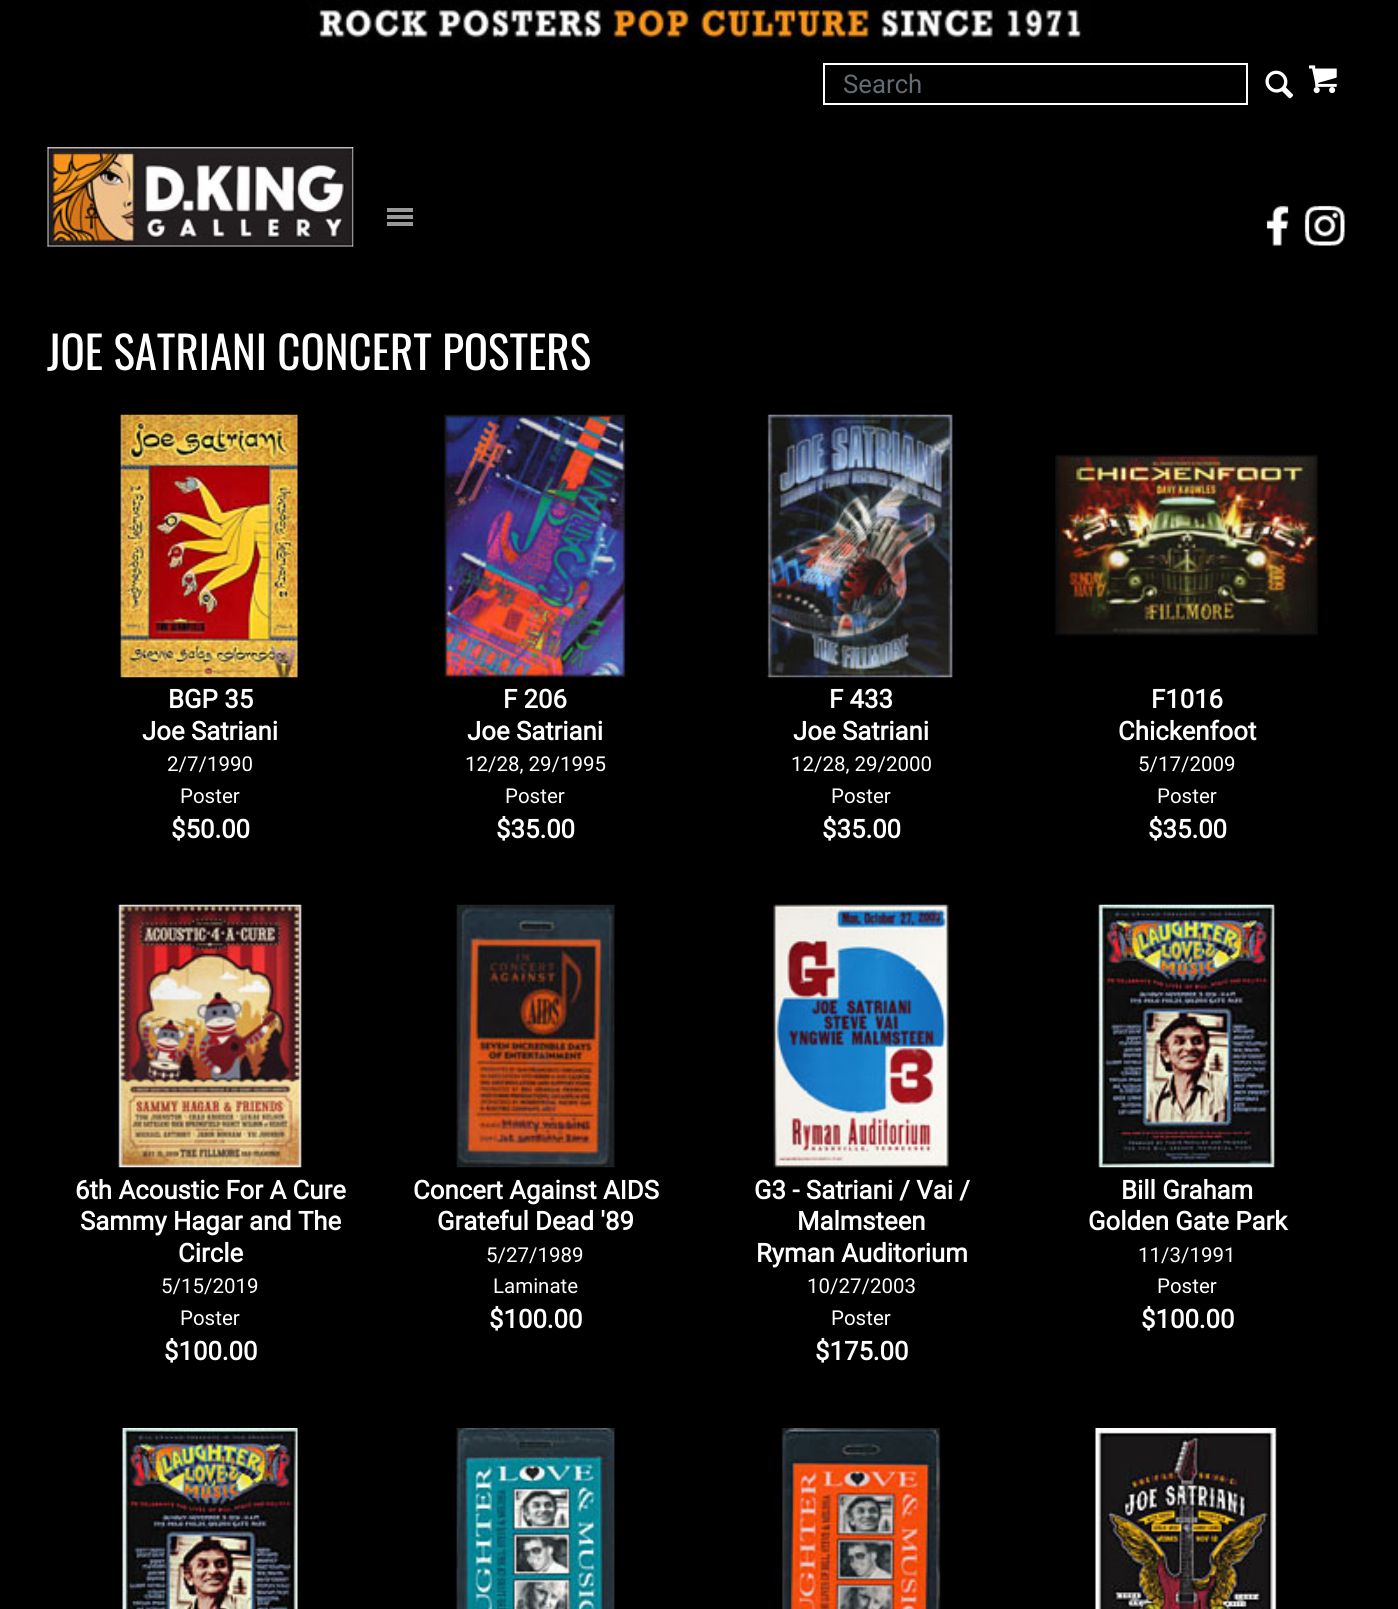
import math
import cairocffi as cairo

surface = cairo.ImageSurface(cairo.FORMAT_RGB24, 1398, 1609)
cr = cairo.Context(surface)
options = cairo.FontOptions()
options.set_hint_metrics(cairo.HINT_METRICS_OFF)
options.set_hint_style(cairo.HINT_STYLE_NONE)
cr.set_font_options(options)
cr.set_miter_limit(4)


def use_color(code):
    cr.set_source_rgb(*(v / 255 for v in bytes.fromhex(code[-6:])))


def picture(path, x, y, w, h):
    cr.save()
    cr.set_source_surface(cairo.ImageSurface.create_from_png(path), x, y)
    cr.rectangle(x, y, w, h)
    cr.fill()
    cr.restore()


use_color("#000000")
cr.paint()
picture("img1.png", 308, 0, 784, 43)
cr.rectangle(824, 64, 423, 40)
use_color("#ffffff")
cr.stroke()
cr.select_font_face("Roboto")
cr.set_font_size(25.75)
use_color("#636c72")
cr.move_to(843, 93)
cr.show_text("Search")
picture("img2.png", 1265, 70, 29, 29)
picture("img3.png", 1309, 65, 28, 29)
picture("img4.png", 47, 147, 307, 100)
use_color("#999999")
cr.rectangle(387, 208, 26, 4)
cr.fill()
cr.rectangle(387, 215, 26, 4)
cr.fill()
cr.rectangle(387, 222, 26, 4)
cr.fill()
picture("img5.png", 1266, 205, 23, 41)
picture("img6.png", 1304, 205, 41, 41)
cr.select_font_face("Oswald")
cr.set_font_size(45)
use_color("#ffffff")
cr.move_to(47, 370)
cr.show_text("JOE SATRIANI CONCERT POSTERS")
picture("img7.png", 120, 414, 183, 264)
cr.select_font_face("Roboto", cairo.FONT_SLANT_NORMAL, cairo.FONT_WEIGHT_BOLD)
cr.set_font_size(25.75)
cr.move_to(168, 708)
cr.show_text("BGP 35")
cr.move_to(142, 740)
cr.show_text("Joe Satriani")
cr.select_font_face("Roboto")
cr.set_font_size(20.5)
cr.move_to(167, 771)
cr.show_text("2/7/1990")
cr.move_to(180, 803)
cr.show_text("Poster")
cr.select_font_face("Roboto", cairo.FONT_SLANT_NORMAL, cairo.FONT_WEIGHT_BOLD)
cr.set_font_size(25.75)
cr.move_to(171, 838)
cr.show_text("$50.00")
picture("img8.png", 444, 414, 185, 264)
cr.move_to(503, 708)
cr.show_text("F 206")
cr.move_to(467, 740)
cr.show_text("Joe Satriani")
cr.select_font_face("Roboto")
cr.set_font_size(20.5)
cr.move_to(465, 771)
cr.show_text("12/28, 29/1995")
cr.move_to(505, 803)
cr.show_text("Poster")
cr.select_font_face("Roboto", cairo.FONT_SLANT_NORMAL, cairo.FONT_WEIGHT_BOLD)
cr.set_font_size(25.75)
cr.move_to(496, 838)
cr.show_text("$35.00")
picture("img9.png", 760, 414, 194, 264)
cr.move_to(829, 708)
cr.show_text("F 433")
cr.move_to(793, 740)
cr.show_text("Joe Satriani")
cr.select_font_face("Roboto")
cr.set_font_size(20.5)
cr.move_to(791, 771)
cr.show_text("12/28, 29/2000")
cr.move_to(831, 803)
cr.show_text("Poster")
cr.select_font_face("Roboto", cairo.FONT_SLANT_NORMAL, cairo.FONT_WEIGHT_BOLD)
cr.set_font_size(25.75)
cr.move_to(822, 838)
cr.show_text("$35.00")
picture("img10.png", 1055, 454, 263, 184)
cr.move_to(1151, 708)
cr.show_text("F1016")
cr.move_to(1118, 740)
cr.show_text("Chickenfoot")
cr.select_font_face("Roboto")
cr.set_font_size(20.5)
cr.move_to(1138, 771)
cr.show_text("5/17/2009")
cr.move_to(1157, 803)
cr.show_text("Poster")
cr.select_font_face("Roboto", cairo.FONT_SLANT_NORMAL, cairo.FONT_WEIGHT_BOLD)
cr.set_font_size(25.75)
cr.move_to(1148, 838)
cr.show_text("$35.00")
picture("img11.png", 118, 904, 185, 264)
cr.move_to(75, 1199)
cr.show_text("6th Acoustic For A Cure")
cr.move_to(80, 1230)
cr.show_text("Sammy Hagar and The")
cr.move_to(178, 1262)
cr.show_text("Circle")
cr.select_font_face("Roboto")
cr.set_font_size(20.5)
cr.move_to(161, 1293)
cr.show_text("5/15/2019")
cr.move_to(180, 1325)
cr.show_text("Poster")
cr.select_font_face("Roboto", cairo.FONT_SLANT_NORMAL, cairo.FONT_WEIGHT_BOLD)
cr.set_font_size(25.75)
cr.move_to(164, 1360)
cr.show_text("$100.00")
picture("img12.png", 454, 904, 161, 264)
cr.move_to(413, 1199)
cr.show_text("Concert Against AIDS")
cr.move_to(437, 1230)
cr.show_text("Grateful Dead '89")
cr.select_font_face("Roboto")
cr.set_font_size(20.5)
cr.move_to(486, 1262)
cr.show_text("5/27/1989")
cr.move_to(493, 1293)
cr.show_text("Laminate")
cr.select_font_face("Roboto", cairo.FONT_SLANT_NORMAL, cairo.FONT_WEIGHT_BOLD)
cr.set_font_size(25.75)
cr.move_to(489, 1328)
cr.show_text("$100.00")
picture("img13.png", 772, 904, 182, 264)
cr.move_to(754, 1199)
cr.show_text("G3 - Satriani / Vai /")
cr.move_to(797, 1230)
cr.show_text("Malmsteen")
cr.move_to(756, 1262)
cr.show_text("Ryman Auditorium")
cr.select_font_face("Roboto")
cr.set_font_size(20.5)
cr.move_to(807, 1293)
cr.show_text("10/27/2003")
cr.move_to(831, 1325)
cr.show_text("Poster")
cr.select_font_face("Roboto", cairo.FONT_SLANT_NORMAL, cairo.FONT_WEIGHT_BOLD)
cr.set_font_size(25.75)
cr.move_to(815, 1360)
cr.show_text("$175.00")
picture("img14.png", 1097, 904, 182, 264)
cr.move_to(1121, 1199)
cr.show_text("Bill Graham")
cr.move_to(1088, 1230)
cr.show_text("Golden Gate Park")
cr.select_font_face("Roboto")
cr.set_font_size(20.5)
cr.move_to(1138, 1262)
cr.show_text("11/3/1991")
cr.move_to(1157, 1293)
cr.show_text("Poster")
cr.select_font_face("Roboto", cairo.FONT_SLANT_NORMAL, cairo.FONT_WEIGHT_BOLD)
cr.set_font_size(25.75)
cr.move_to(1141, 1328)
cr.show_text("$100.00")
picture("img15.png", 121, 1428, 180, 181)
picture("img16.png", 454, 1428, 161, 181)
picture("img17.png", 772, 1428, 169, 181)
picture("img18.png", 1095, 1428, 184, 181)
surface.write_to_png("result.png")
